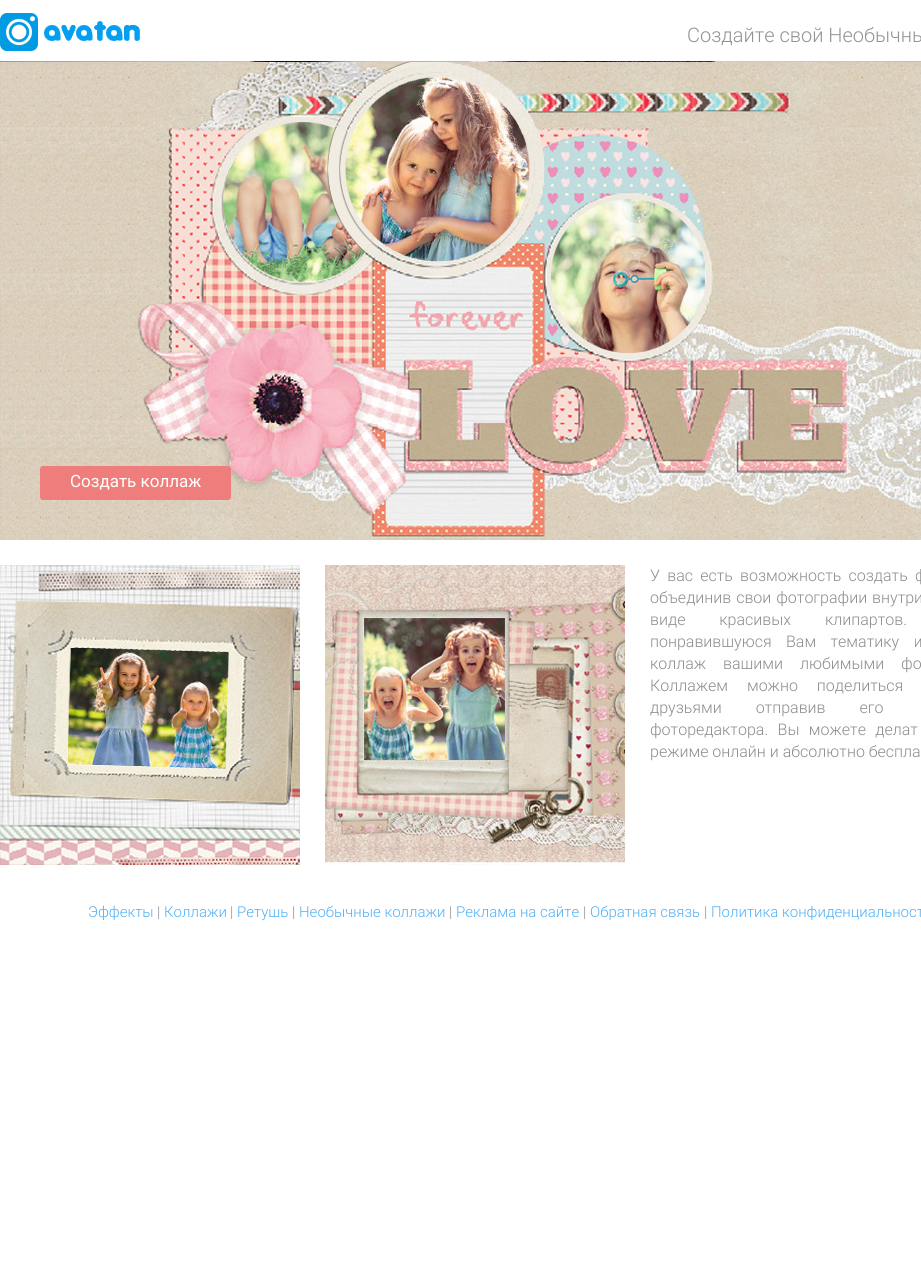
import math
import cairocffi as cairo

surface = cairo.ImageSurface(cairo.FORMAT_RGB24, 921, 1267)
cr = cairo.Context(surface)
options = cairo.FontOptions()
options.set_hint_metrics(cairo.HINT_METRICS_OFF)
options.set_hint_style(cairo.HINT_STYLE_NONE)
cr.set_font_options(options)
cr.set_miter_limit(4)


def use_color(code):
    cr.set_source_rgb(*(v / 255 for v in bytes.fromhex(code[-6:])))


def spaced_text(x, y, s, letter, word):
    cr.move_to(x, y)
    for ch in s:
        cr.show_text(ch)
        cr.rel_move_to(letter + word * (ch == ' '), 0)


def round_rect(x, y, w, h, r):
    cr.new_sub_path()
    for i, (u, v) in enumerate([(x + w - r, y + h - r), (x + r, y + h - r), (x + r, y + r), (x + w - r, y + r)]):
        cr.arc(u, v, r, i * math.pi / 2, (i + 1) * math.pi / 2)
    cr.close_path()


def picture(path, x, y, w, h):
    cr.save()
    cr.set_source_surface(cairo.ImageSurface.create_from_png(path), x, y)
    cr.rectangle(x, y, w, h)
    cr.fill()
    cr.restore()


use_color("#ffffff")
cr.paint()
picture("img1.png", 0, 13, 140, 38)
cr.select_font_face("Roboto Light")
cr.set_font_size(20)
use_color("#939393")
cr.move_to(687, 42)
cr.show_text("Создайте свой Необычны")
picture("img2.png", 0, 61, 921, 479)
use_color("#ee7d7c")
round_rect(40, 466, 191, 34, 3)
cr.fill()
cr.select_font_face("Roboto")
cr.set_font_size(17)
use_color("#ffffff")
cr.move_to(70, 487)
cr.show_text("Создать коллаж")
picture("img3.png", 0, 565, 300, 300)
picture("img4.png", 325, 565, 300, 300)
cr.select_font_face("Roboto Light")
cr.set_font_size(16)
use_color("#8d8d8d")
spaced_text(650, 581, "У вас есть возможность создать ф", 0, 3.25)
spaced_text(650, 603, "объединив свои фотографии внутри", 0, 1)
spaced_text(650, 625, "виде красивых клипартов.", 0, 30)
spaced_text(650, 647, "понравившуюся Вам тематику и", 0, 10.5)
spaced_text(650, 669, "коллаж вашими любимыми фо", 0, 13)
spaced_text(650, 691, "Коллажем можно поделиться", 0, 15)
spaced_text(650, 713, "друзьями отправив его", 0, 30)
spaced_text(650, 735, "фоторедактора. Вы можете делат", 0, 5.5)
cr.move_to(650, 757)
cr.show_text("режиме онлайн и абсолютно беспла")
cr.set_font_size(15)
use_color("#4fb1f7")
cr.move_to(88, 917)
cr.show_text("Эффекты")
use_color("#8d8d8d")
cr.move_to(157, 917)
cr.show_text("|")
use_color("#4fb1f7")
cr.move_to(164, 917)
cr.show_text("Коллажи")
use_color("#8d8d8d")
cr.move_to(230, 917)
cr.show_text("|")
use_color("#4fb1f7")
cr.move_to(237, 917)
cr.show_text("Ретушь")
use_color("#8d8d8d")
cr.move_to(292, 917)
cr.show_text("|")
use_color("#4fb1f7")
cr.move_to(299, 917)
cr.show_text("Необычные коллажи")
use_color("#8d8d8d")
cr.move_to(449, 917)
cr.show_text("|")
use_color("#4fb1f7")
cr.move_to(456, 917)
cr.show_text("Реклама на сайте")
use_color("#8d8d8d")
cr.move_to(583, 917)
cr.show_text("|")
use_color("#4fb1f7")
cr.move_to(590, 917)
cr.show_text("Обратная связь")
use_color("#8d8d8d")
cr.move_to(704, 917)
cr.show_text("|")
use_color("#4fb1f7")
cr.move_to(711, 917)
cr.show_text("Политика конфиденциальност")
surface.write_to_png("result.png")
